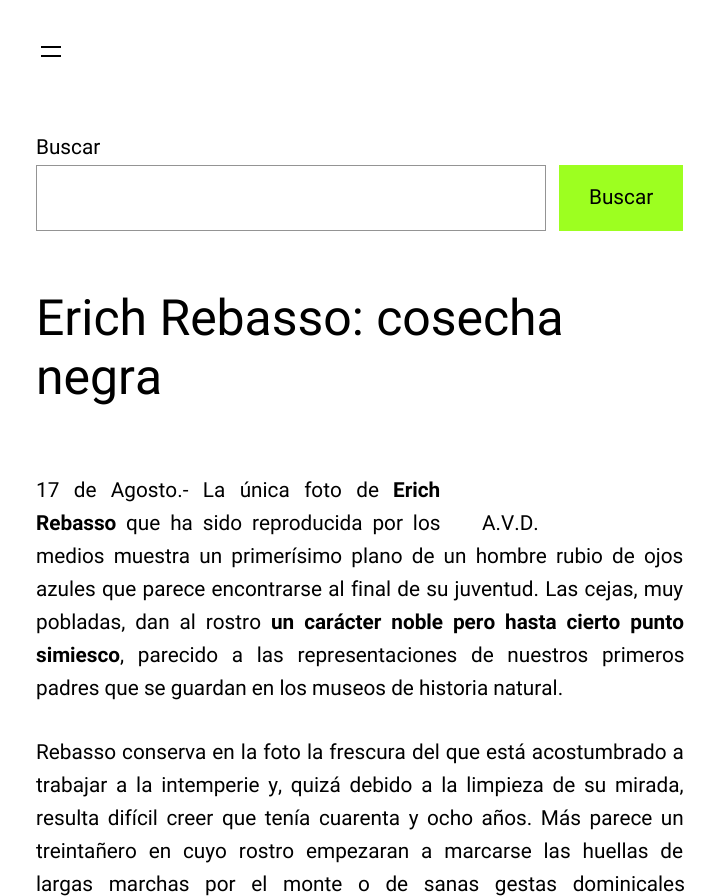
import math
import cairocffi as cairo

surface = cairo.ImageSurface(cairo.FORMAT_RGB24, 718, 896)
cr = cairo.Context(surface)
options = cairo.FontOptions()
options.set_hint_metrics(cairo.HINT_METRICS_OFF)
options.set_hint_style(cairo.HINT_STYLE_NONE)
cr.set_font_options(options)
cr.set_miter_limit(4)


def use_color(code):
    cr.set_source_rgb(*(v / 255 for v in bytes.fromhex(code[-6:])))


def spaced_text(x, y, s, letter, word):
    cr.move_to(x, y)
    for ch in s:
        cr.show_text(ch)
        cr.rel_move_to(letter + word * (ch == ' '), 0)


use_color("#ffffff")
cr.paint()
use_color("#000000")
cr.rectangle(41, 46, 20, 2)
cr.fill()
cr.rectangle(41, 55, 20, 2)
cr.fill()
cr.select_font_face("Roboto")
cr.set_font_size(20.75)
cr.move_to(36, 154)
cr.show_text("Buscar")
cr.rectangle(36.5, 165.5, 509, 65)
use_color("#949494")
cr.set_line_width(1)
cr.stroke()
use_color("#9dff20")
cr.rectangle(559, 165, 124, 66)
cr.fill()
use_color("#000000")
cr.move_to(589, 204)
cr.show_text("Buscar")
cr.set_font_size(49.9)
cr.move_to(36, 335)
cr.show_text("Erich Rebasso: cosecha")
cr.move_to(36, 394)
cr.show_text("negra")
cr.set_font_size(20.75)
spaced_text(36, 497, "17 de Agosto.- La única foto de", 0, 9.25)
cr.select_font_face("Roboto", cairo.FONT_SLANT_NORMAL, cairo.FONT_WEIGHT_BOLD)
cr.move_to(393, 497)
cr.show_text("Erich")
cr.move_to(36, 530)
cr.show_text("Rebasso")
cr.select_font_face("Roboto")
spaced_text(126, 530, "que ha sido reproducida por los", 0, 4.75)
spaced_text(36, 563, "medios muestra un primerísimo plano de un hombre rubio de ojos", 0, 4)
spaced_text(36, 596, "azules que parece encontrarse al final de su juventud. Las cejas, muy", 0, 1.1)
spaced_text(36, 629, "pobladas, dan al rostro", 0, 4.75)
cr.select_font_face("Roboto", cairo.FONT_SLANT_NORMAL, cairo.FONT_WEIGHT_BOLD)
spaced_text(271, 629, "un carácter noble pero hasta cierto punto", 0, 4.75)
cr.move_to(36, 662)
cr.show_text("simiesco")
cr.select_font_face("Roboto")
spaced_text(120, 662, ", parecido a las representaciones de nuestros primeros", 0, 8.5)
cr.move_to(36, 695)
cr.show_text("padres que se guardan en los museos de historia natural.")
cr.move_to(482, 530)
cr.show_text("A.V.D.")
spaced_text(36, 759, "Rebasso conserva en la foto la frescura del que está acostumbrado a", 0, 0.9)
spaced_text(36, 792, "trabajar a la intemperie y, quizá debido a la limpieza de su mirada,", 0, 3.6)
spaced_text(36, 825, "resulta difícil creer que tenía cuarenta y ocho años. Más parece un", 0, 3.4)
spaced_text(36, 858, "treintañero en cuyo rostro empezaran a marcarse las huellas de", 0, 6.75)
spaced_text(36, 891, "largas marchas por el monte o de sanas gestas dominicales", 0, 10.5)
surface.write_to_png("result.png")
